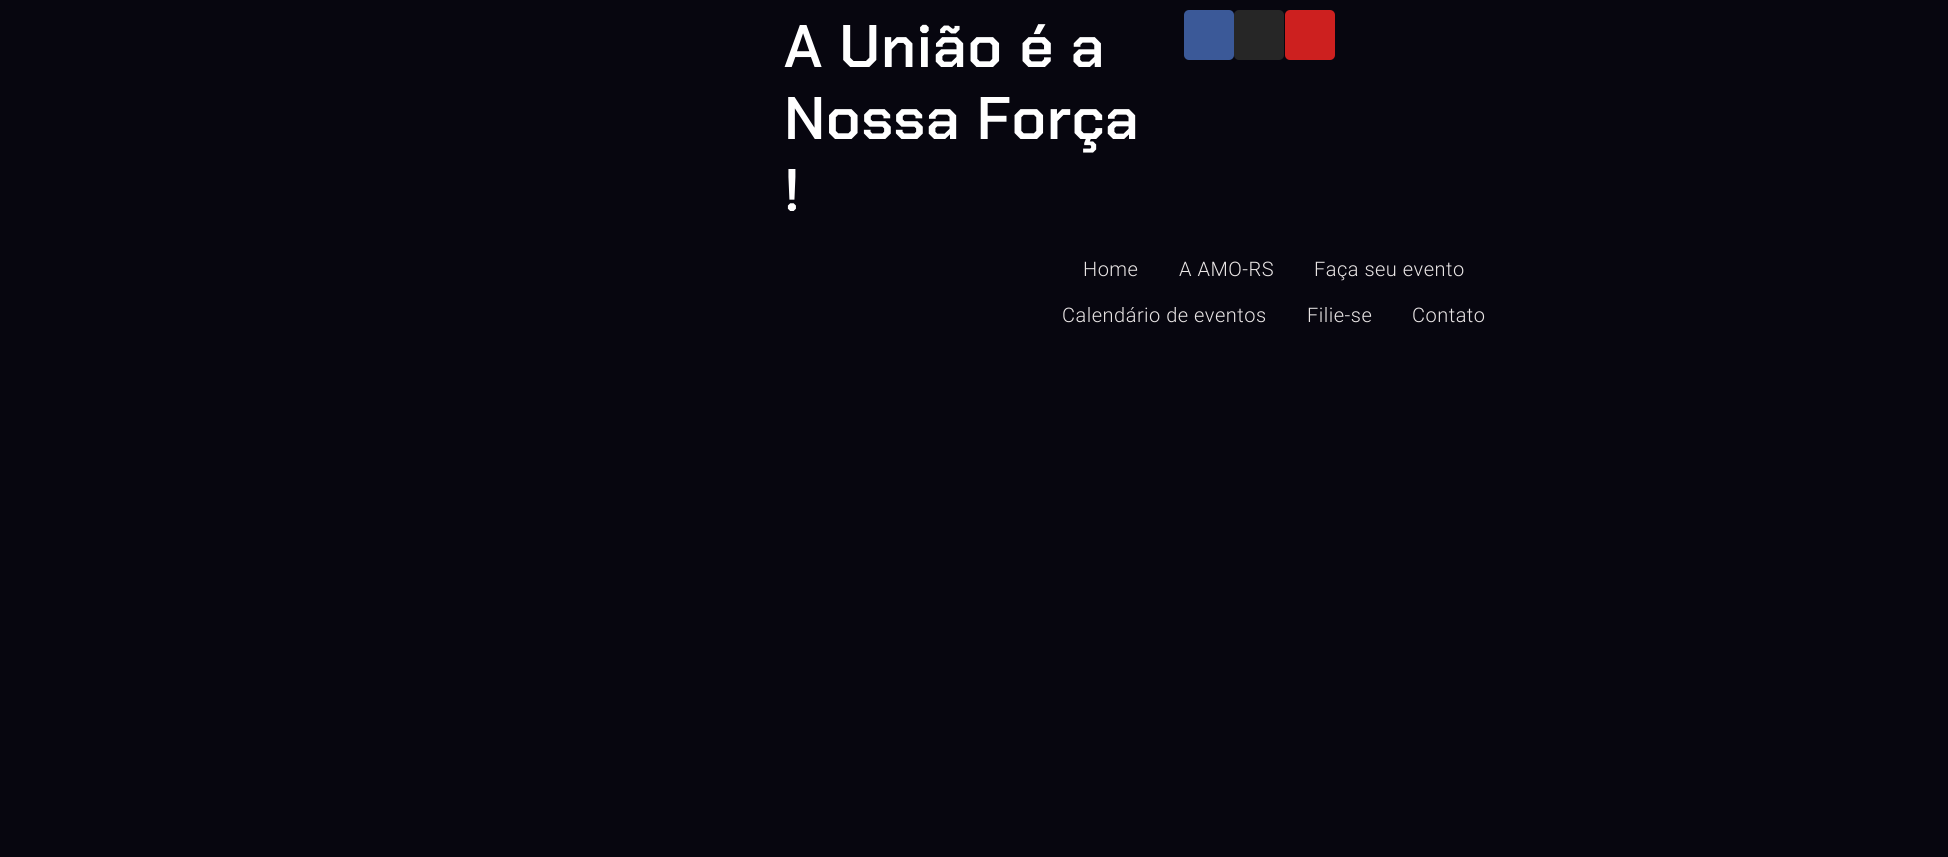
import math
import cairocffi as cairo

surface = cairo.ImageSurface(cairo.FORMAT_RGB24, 1948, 857)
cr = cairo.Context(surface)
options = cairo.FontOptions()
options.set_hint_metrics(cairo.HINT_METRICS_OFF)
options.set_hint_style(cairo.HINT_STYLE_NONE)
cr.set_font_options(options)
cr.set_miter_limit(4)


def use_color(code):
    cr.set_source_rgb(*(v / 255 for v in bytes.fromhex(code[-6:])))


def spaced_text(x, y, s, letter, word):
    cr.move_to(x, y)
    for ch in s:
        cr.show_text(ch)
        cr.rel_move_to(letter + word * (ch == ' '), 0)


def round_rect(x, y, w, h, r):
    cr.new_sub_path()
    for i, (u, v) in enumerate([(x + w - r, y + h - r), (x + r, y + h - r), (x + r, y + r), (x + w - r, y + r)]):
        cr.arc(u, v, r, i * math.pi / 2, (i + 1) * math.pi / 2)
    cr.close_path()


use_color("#07060f")
cr.paint()
cr.select_font_face("Chakra Petch SemiBold")
cr.set_font_size(60)
use_color("#ffffff")
spaced_text(784, 67, "A União é a", 0.5, 0)
spaced_text(784, 139, "Nossa Força", 0.5, 0)
spaced_text(784, 211, "!", 0.5, 0)
use_color("#3b5998")
round_rect(1184, 10, 50, 50, 5)
cr.fill()
use_color("#262626")
round_rect(1234, 10, 50, 50, 5)
cr.fill()
use_color("#cd201f")
round_rect(1285, 10, 50, 50, 5)
cr.fill()
cr.select_font_face("Roboto Light")
cr.set_font_size(20)
use_color("#e9e5e5")
spaced_text(1083, 276, "Home", 0.5, 0)
spaced_text(1179, 276, "A AMO-RS", 0.5, 0)
spaced_text(1314, 276, "Faça seu evento", 0.5, 0)
spaced_text(1062, 322, "Calendário de eventos", 0.5, 0)
spaced_text(1307, 322, "Filie-se", 0.5, 0)
spaced_text(1412, 322, "Contato", 0.5, 0)
surface.write_to_png("result.png")
